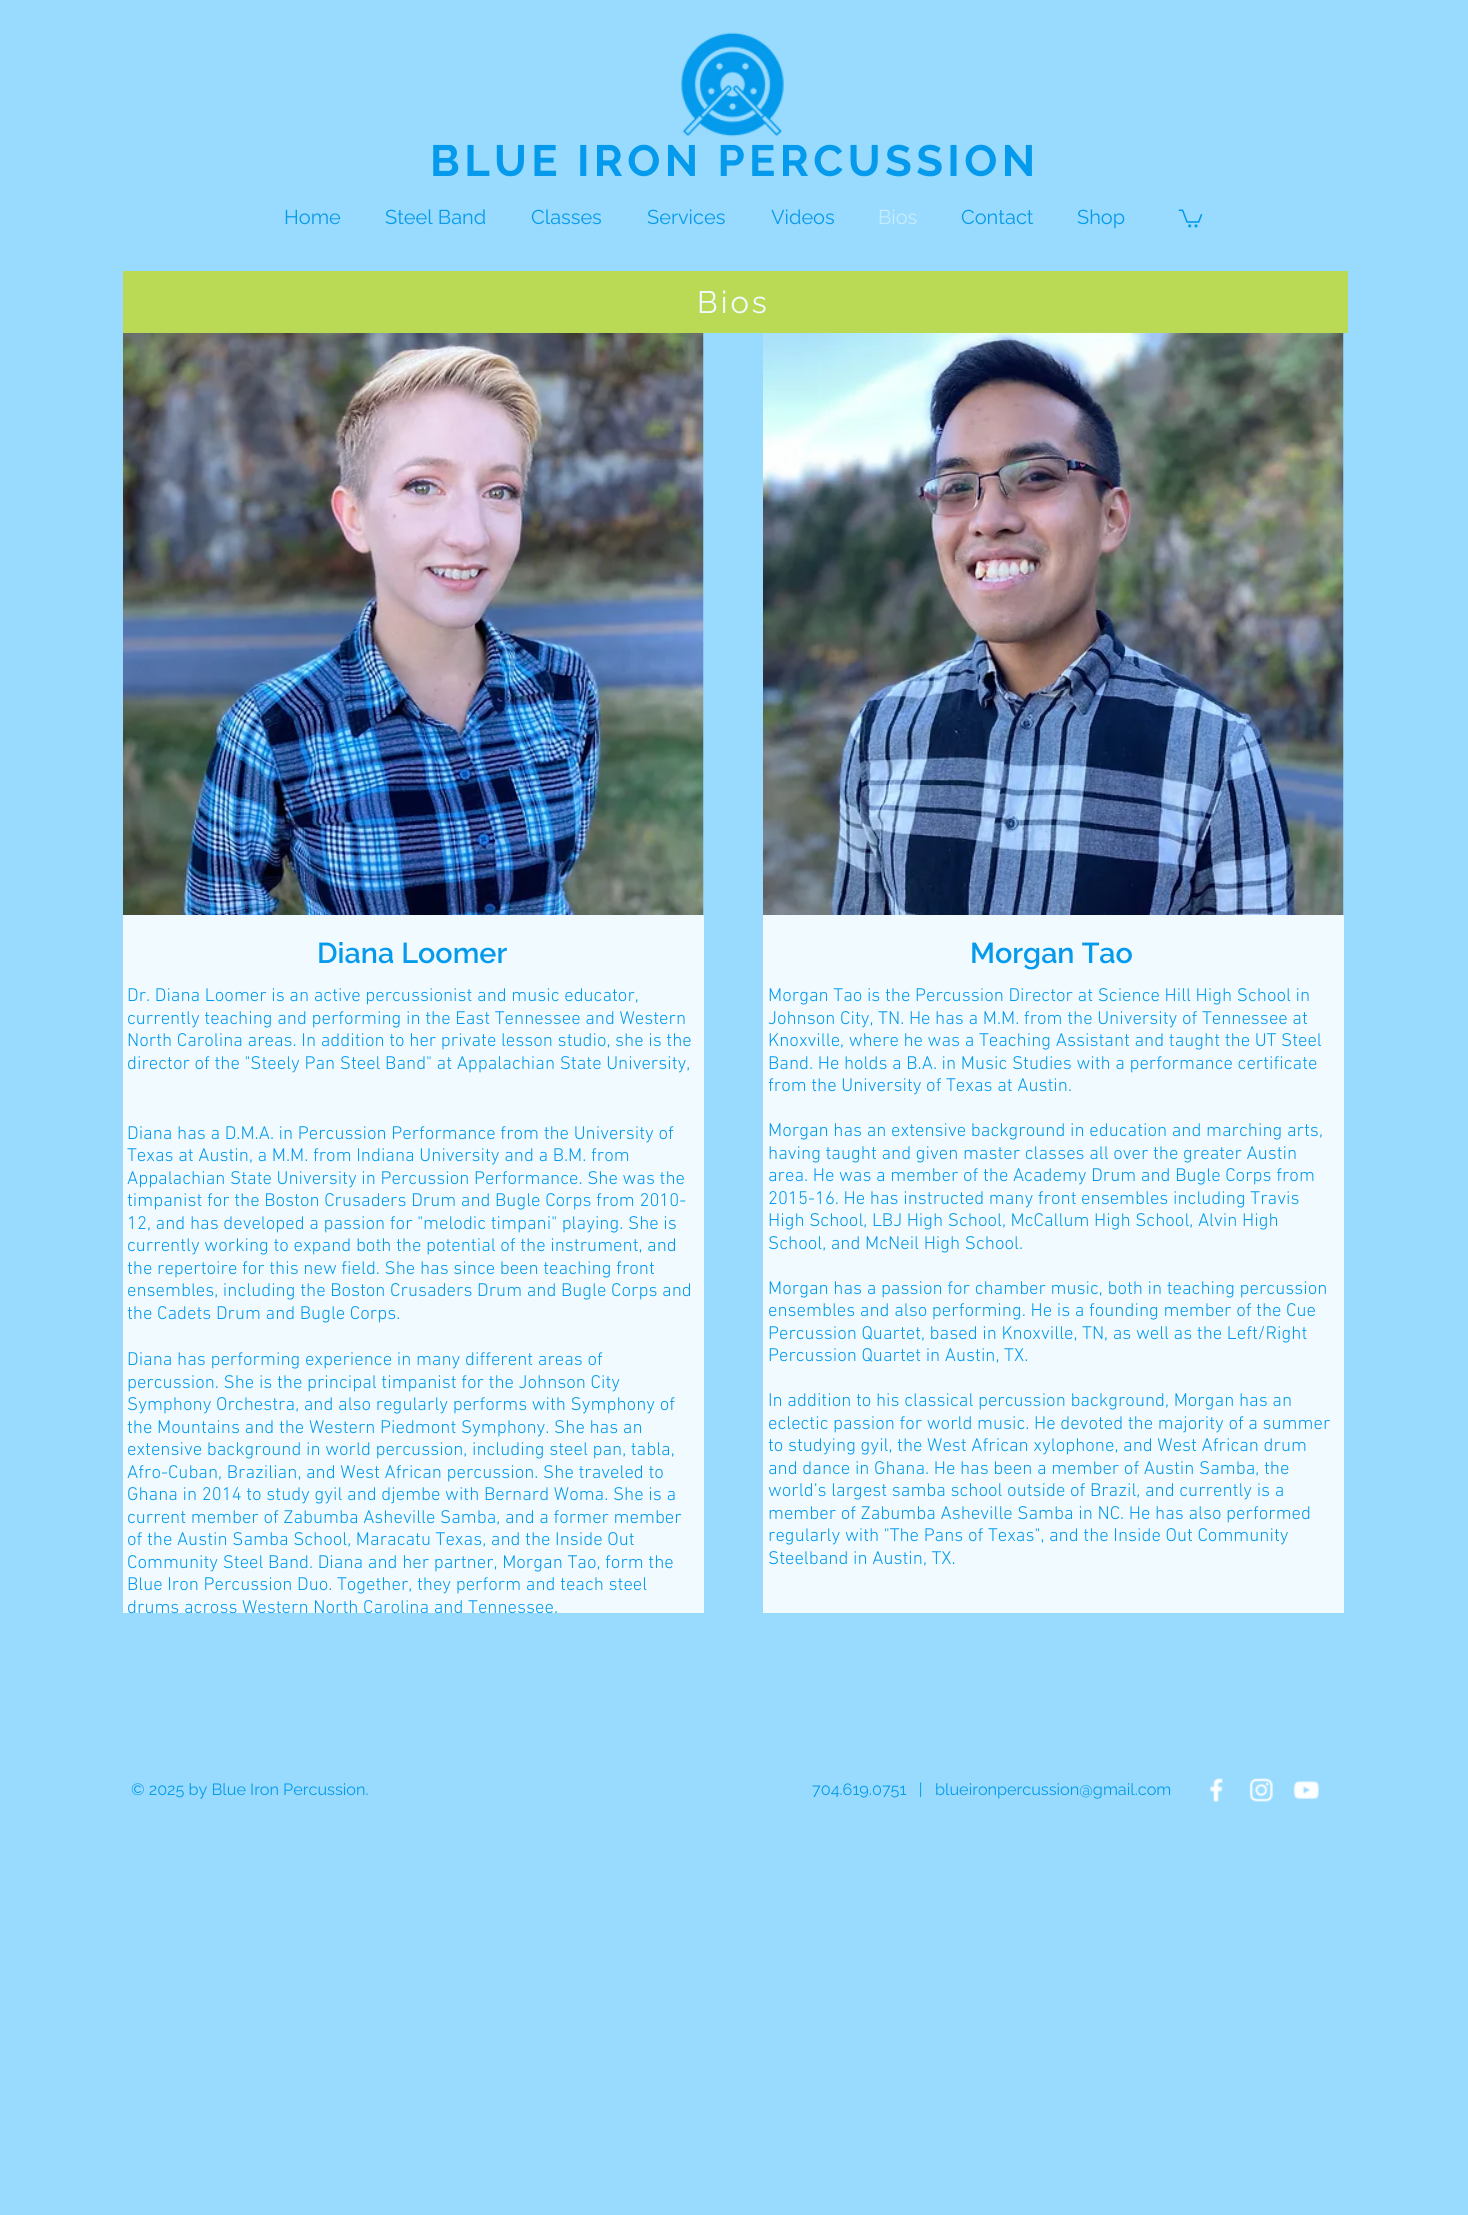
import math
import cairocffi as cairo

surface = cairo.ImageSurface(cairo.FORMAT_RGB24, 1468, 2215)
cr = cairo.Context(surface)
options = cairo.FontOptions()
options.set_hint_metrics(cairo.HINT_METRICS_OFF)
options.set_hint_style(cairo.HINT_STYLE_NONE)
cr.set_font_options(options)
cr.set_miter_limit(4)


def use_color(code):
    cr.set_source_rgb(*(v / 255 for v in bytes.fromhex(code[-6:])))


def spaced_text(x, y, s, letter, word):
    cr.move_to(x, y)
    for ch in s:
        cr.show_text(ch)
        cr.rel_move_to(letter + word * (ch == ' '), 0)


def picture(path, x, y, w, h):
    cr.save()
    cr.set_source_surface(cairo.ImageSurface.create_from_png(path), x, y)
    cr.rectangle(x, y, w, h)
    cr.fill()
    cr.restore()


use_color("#99dbff")
cr.paint()
picture("img1.png", 681, 32, 103, 105)
cr.select_font_face("Raleway", cairo.FONT_SLANT_NORMAL, cairo.FONT_WEIGHT_BOLD)
cr.set_font_size(43.75)
use_color("#059aeb")
spaced_text(430, 176, "BLUE IRON PERCUSSION", 4.4, 0)
cr.select_font_face("Raleway")
cr.set_font_size(20)
cr.move_to(284, 224)
cr.show_text("Home")
cr.move_to(385, 224)
cr.show_text("Steel Band")
cr.move_to(531, 224)
cr.show_text("Classes")
cr.move_to(647, 224)
cr.show_text("Services")
cr.move_to(771, 224)
cr.show_text("Videos")
use_color("#c7ebff")
cr.move_to(878, 224)
cr.show_text("Bios")
use_color("#059aeb")
cr.move_to(961, 224)
cr.show_text("Contact")
cr.move_to(1077, 224)
cr.show_text("Shop")
picture("img2.png", 1178, 209, 25, 19)
use_color("#bada55")
cr.rectangle(123, 271, 1225, 62)
cr.fill()
cr.set_font_size(31)
use_color("#f0faff")
spaced_text(697, 313, "Bios", 3, 0)
picture("img3.png", 123, 333, 581, 582)
picture("img4.png", 763, 333, 581, 582)
cr.rectangle(123, 915, 581, 698)
cr.fill()
cr.select_font_face("Raleway SemiBold")
cr.set_font_size(28.75)
use_color("#059aeb")
cr.move_to(317, 963)
cr.show_text("Diana Loomer")
use_color("#f0faff")
cr.rectangle(763, 915, 581, 698)
cr.fill()
use_color("#059aeb")
cr.move_to(970, 963)
cr.show_text("Morgan Tao")
cr.select_font_face("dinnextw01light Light")
cr.set_font_size(18.75)
cr.move_to(768, 1001)
cr.show_text("Morgan Tao is the Percussion Director at Science Hill High School in")
cr.move_to(768, 1024)
cr.show_text("Johnson City, TN. He has a M.M. from the University of Tennessee at")
cr.move_to(768, 1046)
cr.show_text("Knoxville, where he was a Teaching Assistant and taught the UT Steel")
cr.move_to(768, 1069)
cr.show_text("Band. He holds a B.A. in Music Studies with a performance certificate")
cr.move_to(768, 1091)
cr.show_text("from the University of Texas at Austin.")
cr.move_to(768, 1136)
cr.show_text("Morgan has an extensive background in education and marching arts,")
cr.move_to(768, 1159)
cr.show_text("having taught and given master classes all over the greater Austin")
cr.move_to(768, 1181)
cr.show_text("area. He was a member of the Academy Drum and Bugle Corps from")
cr.move_to(768, 1204)
cr.show_text("2015-16. He has instructed many front ensembles including Travis")
cr.move_to(768, 1226)
cr.show_text("High School, LBJ High School, McCallum High School, Alvin High")
cr.move_to(768, 1249)
cr.show_text("School, and McNeil High School.")
cr.move_to(768, 1294)
cr.show_text("Morgan has a passion for chamber music, both in teaching percussion")
cr.move_to(768, 1316)
cr.show_text("ensembles and also performing. He is a founding member of the Cue")
cr.move_to(768, 1339)
cr.show_text("Percussion Quartet, based in Knoxville, TN, as well as the Left/Right")
cr.move_to(768, 1361)
cr.show_text("Percussion Quartet in Austin, TX.")
cr.move_to(768, 1406)
cr.show_text("In addition to his classical percussion background, Morgan has an")
cr.move_to(768, 1429)
cr.show_text("eclectic passion for world music. He devoted the majority of a summer")
cr.move_to(768, 1451)
cr.show_text("to studying gyil, the West African xylophone, and West African drum")
cr.move_to(768, 1474)
cr.show_text("and dance in Ghana. He has been a member of Austin Samba, the")
cr.move_to(768, 1496)
cr.show_text("world’s largest samba school outside of Brazil, and currently is a")
cr.move_to(768, 1519)
cr.show_text("member of Zabumba Asheville Samba in NC. He has also performed")
cr.move_to(768, 1541)
cr.show_text("regularly with \"The Pans of Texas\", and the Inside Out Community")
cr.move_to(768, 1564)
cr.show_text("Steelband in Austin, TX.")
cr.move_to(127, 1001)
cr.show_text("Dr. Diana Loomer is an active percussionist and music educator,")
cr.move_to(127, 1024)
cr.show_text("currently teaching and performing in the East Tennessee and Western")
cr.move_to(127, 1046)
cr.show_text("North Carolina areas. In addition to her private lesson studio, she is the")
cr.move_to(127, 1069)
cr.show_text("director of the \"Steely Pan Steel Band\" at Appalachian State University,")
cr.move_to(127, 1139)
cr.show_text("Diana has a D.M.A. in Percussion Performance from the University of")
cr.move_to(127, 1161)
cr.show_text("Texas at Austin, a M.M. from Indiana University and a B.M. from")
cr.move_to(127, 1184)
cr.show_text("Appalachian State University in Percussion Performance. She was the")
cr.move_to(127, 1206)
cr.show_text("timpanist for the Boston Crusaders Drum and Bugle Corps from 2010-")
cr.move_to(127, 1229)
cr.show_text("12, and has developed a passion for \"melodic timpani\" playing. She is")
cr.move_to(127, 1251)
cr.show_text("currently working to expand both the potential of the instrument, and")
cr.move_to(127, 1274)
cr.show_text("the repertoire for this new field. She has since been teaching front")
cr.move_to(127, 1296)
cr.show_text("ensembles, including the Boston Crusaders Drum and Bugle Corps and")
cr.move_to(127, 1319)
cr.show_text("the Cadets Drum and Bugle Corps.")
cr.move_to(127, 1365)
cr.show_text("Diana has performing experience in many different areas of")
cr.move_to(127, 1388)
cr.show_text("percussion. She is the principal timpanist for the Johnson City")
cr.move_to(127, 1410)
cr.show_text("Symphony Orchestra, and also regularly performs with Symphony of")
cr.move_to(127, 1433)
cr.show_text("the Mountains and the Western Piedmont Symphony. She has an")
cr.move_to(127, 1455)
cr.show_text("extensive background in world percussion, including steel pan, tabla,")
cr.move_to(127, 1478)
cr.show_text("Afro-Cuban, Brazilian, and West African percussion. She traveled to")
cr.move_to(127, 1500)
cr.show_text("Ghana in 2014 to study gyil and djembe with Bernard Woma. She is a")
cr.move_to(127, 1523)
cr.show_text("current member of Zabumba Asheville Samba, and a former member")
cr.move_to(127, 1545)
cr.show_text("of the Austin Samba School, Maracatu Texas, and the Inside Out")
cr.move_to(127, 1568)
cr.show_text("Community Steel Band. Diana and her partner, Morgan Tao, form the")
cr.move_to(127, 1590)
cr.show_text("Blue Iron Percussion Duo. Together, they perform and teach steel")
cr.move_to(127, 1613)
cr.show_text("drums across Western North Carolina and Tennessee.")
cr.select_font_face("Raleway")
cr.set_font_size(16.25)
cr.move_to(131, 1795)
cr.show_text("© 2025 by Blue Iron Percussion.")
cr.move_to(812, 1795)
cr.show_text("704.619.0751   |")
cr.move_to(935, 1795)
cr.show_text("blueironpercussion@gmail.com")
picture("img5.png", 1210, 1778, 13, 24)
picture("img6.png", 1249, 1778, 24, 24)
picture("img7.png", 1293, 1781, 26, 18)
surface.write_to_png("result.png")
